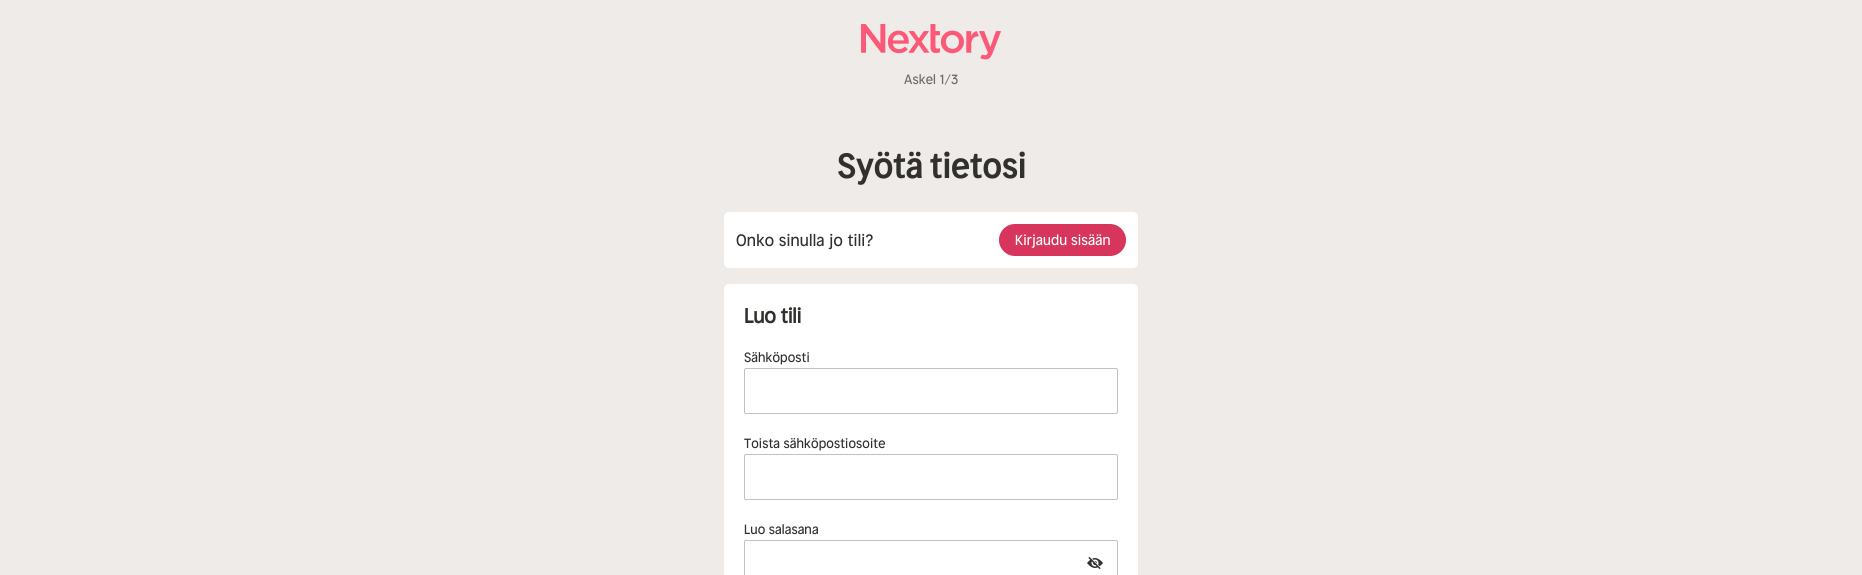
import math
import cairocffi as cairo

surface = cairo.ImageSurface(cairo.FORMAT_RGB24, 1862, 575)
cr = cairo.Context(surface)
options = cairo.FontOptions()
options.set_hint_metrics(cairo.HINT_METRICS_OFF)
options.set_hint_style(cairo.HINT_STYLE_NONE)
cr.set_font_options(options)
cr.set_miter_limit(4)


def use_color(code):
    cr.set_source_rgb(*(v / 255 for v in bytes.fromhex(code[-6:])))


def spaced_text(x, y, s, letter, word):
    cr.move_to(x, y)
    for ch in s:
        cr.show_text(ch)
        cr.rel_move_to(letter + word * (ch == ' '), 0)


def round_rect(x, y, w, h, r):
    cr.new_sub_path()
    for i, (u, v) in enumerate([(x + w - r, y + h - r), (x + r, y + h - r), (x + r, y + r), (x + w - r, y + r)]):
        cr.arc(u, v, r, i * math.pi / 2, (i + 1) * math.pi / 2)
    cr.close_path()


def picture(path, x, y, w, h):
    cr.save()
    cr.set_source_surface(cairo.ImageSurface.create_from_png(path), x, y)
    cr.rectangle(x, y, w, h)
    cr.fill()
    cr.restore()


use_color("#eeebe8")
cr.paint()
picture("img1.png", 861, 24, 140, 36)
cr.select_font_face("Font")
cr.set_font_size(13)
use_color("#6e6868")
spaced_text(904, 84, "Askel 1/3", 0.1, 0)
cr.select_font_face("Font SemiBold")
cr.set_font_size(34)
use_color("#32302d")
spaced_text(837, 178, "Syötä tietosi", -0.3, 0)
use_color("#ffffff")
round_rect(724, 212, 414, 56, 5)
cr.fill()
cr.select_font_face("Font")
cr.set_font_size(16)
use_color("#32302d")
spaced_text(736, 246, "Onko sinulla jo tili?", 0.2, 0)
use_color("#d7355b")
round_rect(999, 224, 127, 32, 16)
cr.fill()
cr.set_font_size(14)
use_color("#ffffff")
spaced_text(1015, 245, "Kirjaudu sisään", 0.1, 0)
round_rect(724, 284, 414, 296, 5)
cr.fill()
cr.select_font_face("Font", cairo.FONT_SLANT_NORMAL, cairo.FONT_WEIGHT_BOLD)
cr.set_font_size(20)
use_color("#32302d")
spaced_text(744, 323, "Luo tili", -0.25, 0)
cr.select_font_face("Font")
cr.set_font_size(13)
spaced_text(744, 362, "Sähköposti", 0.1, 0)
round_rect(744.5, 368.5, 373, 45, 1.5)
use_color("#c4c0bd")
cr.set_line_width(1)
cr.stroke()
use_color("#32302d")
spaced_text(744, 448, "Toista sähköpostiosoite", 0.1, 0)
round_rect(744.5, 454.5, 373, 45, 1.5)
use_color("#c4c0bd")
cr.stroke()
use_color("#32302d")
spaced_text(744, 534, "Luo salasana", 0.1, 0)
round_rect(744.5, 540.5, 373, 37, 1.5)
use_color("#c4c0bd")
cr.stroke()
picture("img2.png", 1087, 557, 16, 12)
surface.write_to_png("result.png")
